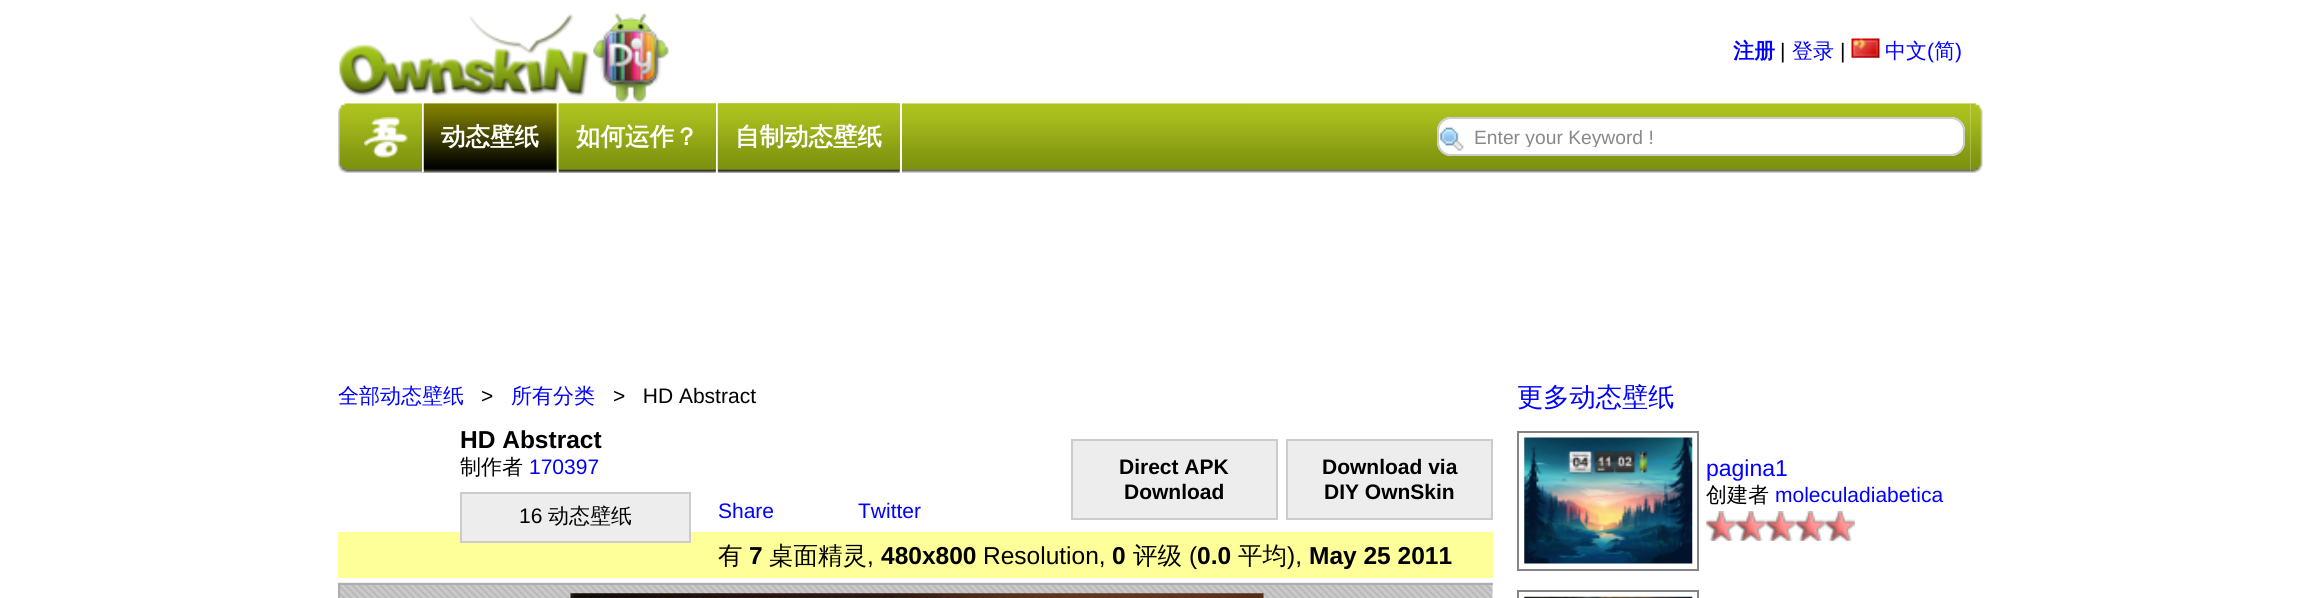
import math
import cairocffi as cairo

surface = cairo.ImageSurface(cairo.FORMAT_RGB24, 2319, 598)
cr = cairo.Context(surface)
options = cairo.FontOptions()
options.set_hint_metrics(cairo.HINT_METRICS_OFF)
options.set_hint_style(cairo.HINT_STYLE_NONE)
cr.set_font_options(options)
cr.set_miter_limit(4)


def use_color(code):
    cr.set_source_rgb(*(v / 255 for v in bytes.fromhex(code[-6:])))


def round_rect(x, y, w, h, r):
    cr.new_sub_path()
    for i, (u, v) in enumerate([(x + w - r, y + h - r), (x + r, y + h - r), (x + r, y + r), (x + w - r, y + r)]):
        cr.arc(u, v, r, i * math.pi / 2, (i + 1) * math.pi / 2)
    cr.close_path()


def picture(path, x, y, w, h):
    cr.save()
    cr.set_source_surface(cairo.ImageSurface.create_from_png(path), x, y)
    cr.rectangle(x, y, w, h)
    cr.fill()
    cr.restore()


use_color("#ffffff")
cr.paint()
picture("img1.png", 339, 13, 330, 89)
cr.select_font_face("WenQuanYi Zen Hei", cairo.FONT_SLANT_NORMAL, cairo.FONT_WEIGHT_BOLD)
cr.set_font_size(21)
use_color("#0000ff")
cr.move_to(1733, 58)
cr.show_text("注册")
cr.select_font_face("Liberation Sans")
use_color("#000000")
cr.move_to(1780, 58)
cr.show_text("|")
cr.select_font_face("WenQuanYi Zen Hei Medium")
use_color("#0000ff")
cr.move_to(1792, 58)
cr.show_text("登录")
cr.select_font_face("Liberation Sans")
use_color("#000000")
cr.move_to(1840, 58)
cr.show_text("|")
picture("img2.png", 1851, 38, 29, 20)
cr.select_font_face("WenQuanYi Zen Hei Medium")
use_color("#0000ff")
cr.move_to(1885, 58)
cr.show_text("中文")
cr.select_font_face("Liberation Sans")
cr.move_to(1927, 58)
cr.show_text("(")
cr.select_font_face("WenQuanYi Zen Hei Medium")
cr.move_to(1934, 58)
cr.show_text("简")
cr.select_font_face("Liberation Sans")
cr.move_to(1955, 58)
cr.show_text(")")
picture("img3.png", 338, 103, 12, 70)
picture("img4.png", 350, 103, 1621, 70)
use_color("#ffffff")
cr.rectangle(422, 103, 2, 69)
cr.fill()
picture("img5.png", 364, 117, 44, 41)
cr.rectangle(557, 103, 2, 70)
cr.fill()
picture("img6.png", 423, 103, 134, 70)
cr.select_font_face("WenQuanYi Zen Hei", cairo.FONT_SLANT_NORMAL, cairo.FONT_WEIGHT_BOLD)
cr.set_font_size(24.5)
cr.move_to(441, 145)
cr.show_text("动态壁纸")
cr.rectangle(716, 103, 2, 70)
cr.fill()
picture("img7.png", 558, 103, 158, 70)
cr.move_to(576, 145)
cr.show_text("如何运作？")
cr.rectangle(900, 103, 2, 70)
cr.fill()
picture("img8.png", 717, 103, 183, 70)
cr.move_to(735, 145)
cr.show_text("自制动态壁纸")
round_rect(1437, 117, 528, 39, 14)
cr.fill()
picture("img9.png", 1439, 127, 25, 24)
round_rect(1438, 118, 526, 37, 13)
use_color("#cccccc")
cr.stroke()
cr.save()
cr.rectangle(1474, 126, 490, 21)
cr.clip()
cr.select_font_face("Liberation Sans")
cr.set_font_size(19.25)
use_color("#888888")
cr.move_to(1474, 144)
cr.show_text("Enter your Keyword !")
cr.restore()
picture("img10.png", 1970, 103, 13, 70)
cr.select_font_face("WenQuanYi Zen Hei Medium")
cr.set_font_size(21)
use_color("#0000ff")
cr.move_to(338, 403)
cr.show_text("全部动态壁纸")
cr.select_font_face("Liberation Sans")
use_color("#000000")
cr.move_to(481, 403)
cr.show_text(">")
cr.select_font_face("WenQuanYi Zen Hei Medium")
use_color("#0000ff")
cr.move_to(511, 403)
cr.show_text("所有分类")
cr.select_font_face("Liberation Sans")
use_color("#000000")
cr.move_to(613, 403)
cr.show_text(">   HD Abstract")
cr.select_font_face("Liberation Sans", cairo.FONT_SLANT_NORMAL, cairo.FONT_WEIGHT_BOLD)
cr.set_font_size(24.5)
cr.move_to(460, 448)
cr.show_text("HD Abstract")
cr.select_font_face("WenQuanYi Zen Hei Medium")
cr.set_font_size(21)
cr.move_to(460, 474)
cr.show_text("制作者")
cr.select_font_face("Liberation Sans")
use_color("#0000ff")
cr.move_to(529, 474)
cr.show_text("170397")
use_color("#ffff99")
cr.rectangle(338, 532, 1155, 46)
cr.fill()
use_color("#ededed")
cr.rectangle(461, 493, 229, 49)
cr.fill_preserve()
use_color("#cccccc")
cr.stroke()
use_color("#000000")
cr.move_to(519, 523)
cr.show_text("16")
cr.select_font_face("WenQuanYi Zen Hei Medium")
cr.move_to(548, 523)
cr.show_text("动态壁纸")
use_color("#ededed")
cr.rectangle(1072, 440, 205, 79)
cr.fill_preserve()
use_color("#cccccc")
cr.stroke()
cr.select_font_face("Liberation Sans", cairo.FONT_SLANT_NORMAL, cairo.FONT_WEIGHT_BOLD)
use_color("#000000")
cr.move_to(1119, 474)
cr.show_text("Direct APK")
cr.move_to(1124, 499)
cr.show_text("Download")
use_color("#ededed")
cr.rectangle(1287, 440, 205, 79)
cr.fill_preserve()
use_color("#cccccc")
cr.stroke()
use_color("#000000")
cr.move_to(1322, 474)
cr.show_text("Download via")
cr.move_to(1324, 499)
cr.show_text("DIY OwnSkin")
cr.select_font_face("Liberation Sans")
use_color("#0000ff")
cr.move_to(718, 518)
cr.show_text("Share")
cr.move_to(858, 518)
cr.show_text("Twitter")
cr.select_font_face("WenQuanYi Zen Hei Medium")
cr.set_font_size(24.5)
use_color("#000000")
cr.move_to(718, 564)
cr.show_text("有")
cr.select_font_face("Liberation Sans", cairo.FONT_SLANT_NORMAL, cairo.FONT_WEIGHT_BOLD)
cr.move_to(749, 564)
cr.show_text("7")
cr.select_font_face("WenQuanYi Zen Hei Medium")
cr.move_to(769, 564)
cr.show_text("桌面精灵")
cr.select_font_face("Liberation Sans")
cr.move_to(867, 564)
cr.show_text(",")
cr.select_font_face("Liberation Sans", cairo.FONT_SLANT_NORMAL, cairo.FONT_WEIGHT_BOLD)
cr.move_to(881, 564)
cr.show_text("480x800")
cr.select_font_face("Liberation Sans")
cr.move_to(983, 564)
cr.show_text("Resolution,")
cr.select_font_face("Liberation Sans", cairo.FONT_SLANT_NORMAL, cairo.FONT_WEIGHT_BOLD)
cr.move_to(1112, 564)
cr.show_text("0")
cr.select_font_face("WenQuanYi Zen Hei Medium")
cr.move_to(1133, 564)
cr.show_text("评级")
cr.select_font_face("Liberation Sans")
cr.move_to(1189, 564)
cr.show_text("(")
cr.select_font_face("Liberation Sans", cairo.FONT_SLANT_NORMAL, cairo.FONT_WEIGHT_BOLD)
cr.move_to(1197, 564)
cr.show_text("0.0")
cr.select_font_face("WenQuanYi Zen Hei Medium")
cr.move_to(1238, 564)
cr.show_text("平均")
cr.select_font_face("Liberation Sans")
cr.move_to(1287, 564)
cr.show_text("),")
cr.select_font_face("Liberation Sans", cairo.FONT_SLANT_NORMAL, cairo.FONT_WEIGHT_BOLD)
cr.move_to(1309, 564)
cr.show_text("May 25 2011")
picture("img11.png", 337, 582, 1156, 16)
cr.save()
cr.rectangle(338, 425, 1155, 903)
cr.clip()
cr.rectangle(339, 584, 1156, 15)
use_color("#adadad")
cr.stroke()
cr.restore()
picture("img12.png", 570, 593, 694, 5)
cr.select_font_face("WenQuanYi Zen Hei Medium")
cr.set_font_size(26.25)
use_color("#0000ff")
cr.move_to(1517, 406)
cr.show_text("更多动态壁纸")
cr.rectangle(1518, 432, 180, 138)
use_color("#858585")
cr.stroke()
picture("img13.png", 1524, 437, 169, 127)
cr.select_font_face("Liberation Sans")
cr.set_font_size(23)
use_color("#0000ff")
cr.move_to(1706, 476)
cr.show_text("pagina1")
cr.select_font_face("WenQuanYi Zen Hei Medium")
cr.set_font_size(21)
use_color("#000000")
cr.move_to(1706, 502)
cr.show_text("创建者")
cr.select_font_face("Liberation Sans")
use_color("#0000ff")
cr.move_to(1775, 502)
cr.show_text("moleculadiabetica")
picture("img14.png", 1706, 511, 30, 30)
picture("img15.png", 1736, 511, 30, 30)
picture("img16.png", 1765, 511, 31, 30)
picture("img17.png", 1795, 511, 31, 30)
picture("img18.png", 1825, 511, 30, 30)
cr.rectangle(1518, 591, 180, 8)
use_color("#858585")
cr.stroke()
picture("img19.png", 1524, 596, 169, 2)
surface.write_to_png("result.png")
